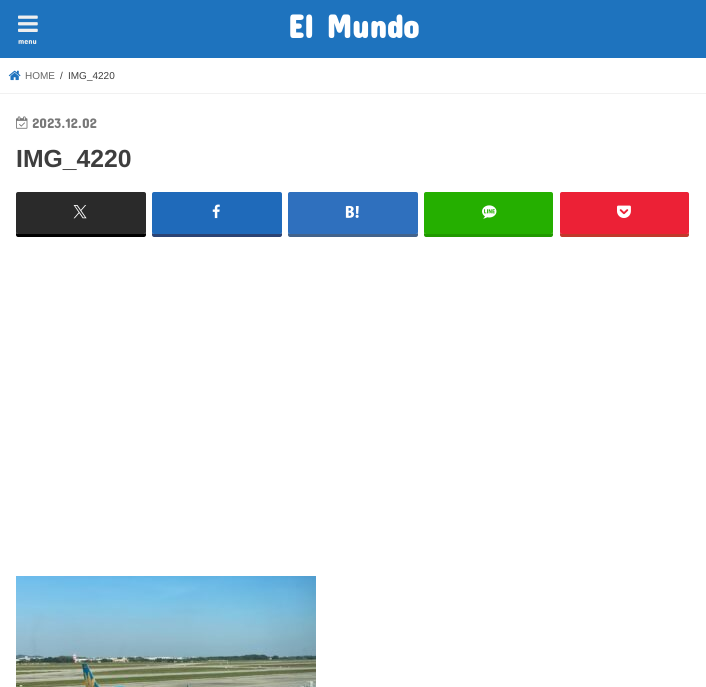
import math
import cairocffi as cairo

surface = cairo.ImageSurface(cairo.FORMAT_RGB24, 706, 687)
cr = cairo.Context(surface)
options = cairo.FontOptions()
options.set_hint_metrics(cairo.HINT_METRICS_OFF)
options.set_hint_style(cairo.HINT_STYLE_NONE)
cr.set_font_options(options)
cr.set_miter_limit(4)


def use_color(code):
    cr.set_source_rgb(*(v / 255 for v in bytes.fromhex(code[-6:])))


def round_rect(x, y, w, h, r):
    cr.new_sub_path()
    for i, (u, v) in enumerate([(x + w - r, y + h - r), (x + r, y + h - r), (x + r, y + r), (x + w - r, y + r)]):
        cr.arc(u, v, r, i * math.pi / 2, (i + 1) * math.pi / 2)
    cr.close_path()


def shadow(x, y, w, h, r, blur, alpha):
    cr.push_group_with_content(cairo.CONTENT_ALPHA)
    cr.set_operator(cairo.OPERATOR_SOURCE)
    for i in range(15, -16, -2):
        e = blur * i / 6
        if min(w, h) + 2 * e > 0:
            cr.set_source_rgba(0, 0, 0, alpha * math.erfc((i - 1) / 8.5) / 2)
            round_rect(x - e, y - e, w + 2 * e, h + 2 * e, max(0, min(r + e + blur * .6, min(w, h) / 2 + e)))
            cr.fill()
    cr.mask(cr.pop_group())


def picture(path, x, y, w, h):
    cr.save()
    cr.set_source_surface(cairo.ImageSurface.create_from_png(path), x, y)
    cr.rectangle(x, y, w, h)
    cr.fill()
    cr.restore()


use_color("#ffffff")
cr.paint()
use_color("#1e73be")
cr.rectangle(0, 0, 706, 58)
cr.fill()
cr.select_font_face("Concert One", cairo.FONT_SLANT_NORMAL, cairo.FONT_WEIGHT_BOLD)
cr.set_font_size(33)
use_color("#ffffff")
cr.move_to(288, 38)
cr.show_text("El Mundo")
picture("img1.png", 18, 15, 20, 17)
cr.select_font_face("Concert One")
cr.set_font_size(8)
use_color("#eeeeee")
cr.move_to(18, 44)
cr.show_text("menu")
use_color("#f7f7f7")
cr.rectangle(0, 93, 706, 1)
cr.fill()
picture("img2.png", 8, 70, 13, 11)
cr.select_font_face("Liberation Sans")
cr.set_font_size(10)
use_color("#666666")
cr.move_to(25, 79)
cr.show_text("HOME")
use_color("#3e3e3e")
cr.move_to(60, 79)
cr.show_text("/")
cr.move_to(68, 79)
cr.show_text("IMG_4220")
use_color("#dddddd")
shadow(0, 94, 706, 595, 0, 0.5, 1)
use_color("#ffffff")
cr.rectangle(0, 94, 706, 593)
cr.fill()
picture("img3.png", 16, 116, 12, 13)
cr.select_font_face("Concert One")
cr.set_font_size(14)
use_color("#787878")
cr.move_to(32, 128)
cr.show_text("2023.12.02")
cr.select_font_face("Liberation Sans", cairo.FONT_SLANT_NORMAL, cairo.FONT_WEIGHT_BOLD)
cr.set_font_size(24.75)
use_color("#3e3e3e")
cr.move_to(16, 167)
cr.show_text("IMG_4220")
use_color("#000000")
cr.new_path()
cr.move_to(16, 232)
cr.line_to(16, 235)
cr.curve_to(16, 236, 17, 237, 18, 237)
cr.line_to(144, 237)
cr.curve_to(145, 237, 146, 236, 146, 235)
cr.line_to(146, 232)
cr.curve_to(146, 233, 145, 234, 144, 234)
cr.line_to(18, 234)
cr.curve_to(17, 234, 16, 233, 16, 232)
cr.close_path()
cr.fill()
use_color("#2a2a2a")
round_rect(16, 192, 130, 42, 2)
cr.fill()
picture("img4.png", 73, 205, 14, 14)
use_color("#2c4373")
cr.new_path()
cr.move_to(152, 232)
cr.line_to(152, 235)
cr.curve_to(152, 236, 153, 237, 154, 237)
cr.line_to(280, 237)
cr.curve_to(281, 237, 282, 236, 282, 235)
cr.line_to(282, 232)
cr.curve_to(282, 233, 281, 234, 280, 234)
cr.line_to(154, 234)
cr.curve_to(153, 234, 152, 233, 152, 232)
cr.close_path()
cr.fill()
use_color("#1f6aba")
round_rect(152, 192, 130, 42, 2)
cr.fill()
picture("img5.png", 212, 204, 8, 15)
use_color("#43638b")
cr.new_path()
cr.move_to(288, 232)
cr.line_to(288, 235)
cr.curve_to(288, 236, 289, 237, 290, 237)
cr.line_to(416, 237)
cr.curve_to(417, 237, 418, 236, 418, 235)
cr.line_to(418, 232)
cr.curve_to(418, 233, 417, 234, 416, 234)
cr.line_to(290, 234)
cr.curve_to(289, 234, 288, 233, 288, 232)
cr.close_path()
cr.fill()
use_color("#2f70be")
round_rect(288, 192, 130, 42, 2)
cr.fill()
picture("img6.png", 345, 205, 14, 13)
use_color("#219900")
cr.new_path()
cr.move_to(424, 232)
cr.line_to(424, 235)
cr.curve_to(424, 236, 425, 237, 426, 237)
cr.line_to(551, 237)
cr.curve_to(552, 237, 553, 236, 553, 235)
cr.line_to(553, 232)
cr.curve_to(553, 233, 552, 234, 551, 234)
cr.line_to(426, 234)
cr.curve_to(425, 234, 424, 233, 424, 232)
cr.close_path()
cr.fill()
use_color("#25af00")
round_rect(424, 192, 129, 42, 2)
cr.fill()
picture("img7.png", 482, 205, 15, 14)
use_color("#c0392b")
cr.new_path()
cr.move_to(560, 232)
cr.line_to(560, 235)
cr.curve_to(560, 236, 561, 237, 562, 237)
cr.line_to(687, 237)
cr.curve_to(688, 237, 689, 236, 689, 235)
cr.line_to(689, 232)
cr.curve_to(689, 233, 688, 234, 687, 234)
cr.line_to(562, 234)
cr.curve_to(561, 234, 560, 233, 560, 232)
cr.close_path()
cr.fill()
use_color("#ec2136")
round_rect(560, 192, 129, 42, 2)
cr.fill()
picture("img8.png", 617, 205, 14, 13)
picture("img9.png", 16, 576, 300, 111)
surface.write_to_png("result.png")
